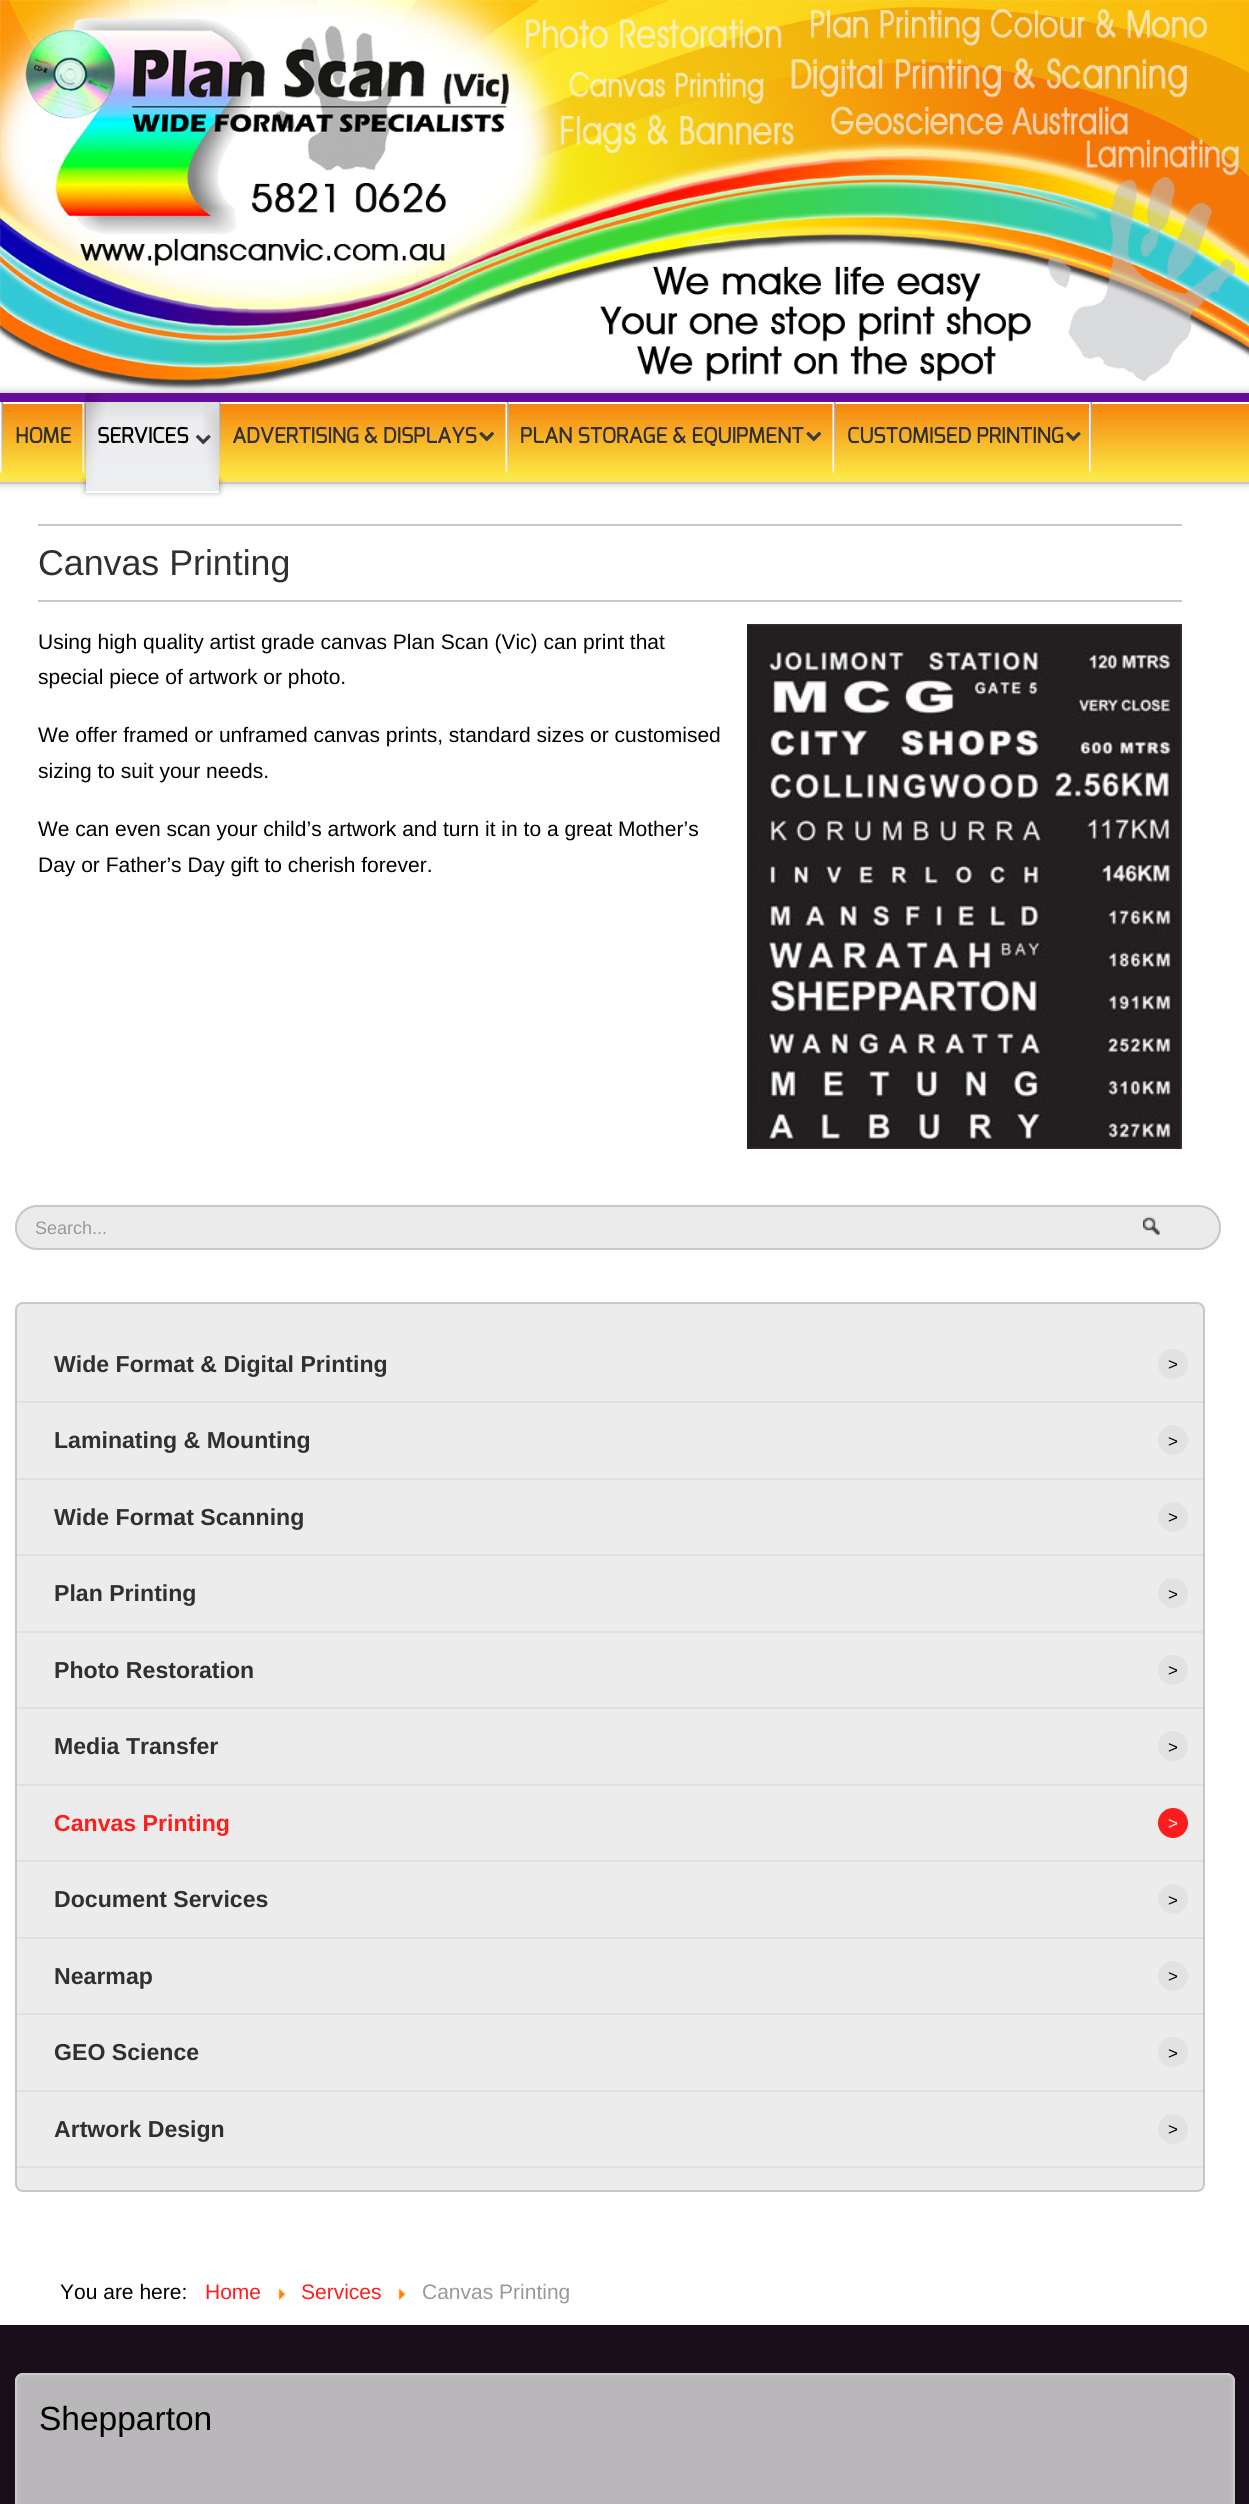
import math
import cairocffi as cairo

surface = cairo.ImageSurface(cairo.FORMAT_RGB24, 1249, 2504)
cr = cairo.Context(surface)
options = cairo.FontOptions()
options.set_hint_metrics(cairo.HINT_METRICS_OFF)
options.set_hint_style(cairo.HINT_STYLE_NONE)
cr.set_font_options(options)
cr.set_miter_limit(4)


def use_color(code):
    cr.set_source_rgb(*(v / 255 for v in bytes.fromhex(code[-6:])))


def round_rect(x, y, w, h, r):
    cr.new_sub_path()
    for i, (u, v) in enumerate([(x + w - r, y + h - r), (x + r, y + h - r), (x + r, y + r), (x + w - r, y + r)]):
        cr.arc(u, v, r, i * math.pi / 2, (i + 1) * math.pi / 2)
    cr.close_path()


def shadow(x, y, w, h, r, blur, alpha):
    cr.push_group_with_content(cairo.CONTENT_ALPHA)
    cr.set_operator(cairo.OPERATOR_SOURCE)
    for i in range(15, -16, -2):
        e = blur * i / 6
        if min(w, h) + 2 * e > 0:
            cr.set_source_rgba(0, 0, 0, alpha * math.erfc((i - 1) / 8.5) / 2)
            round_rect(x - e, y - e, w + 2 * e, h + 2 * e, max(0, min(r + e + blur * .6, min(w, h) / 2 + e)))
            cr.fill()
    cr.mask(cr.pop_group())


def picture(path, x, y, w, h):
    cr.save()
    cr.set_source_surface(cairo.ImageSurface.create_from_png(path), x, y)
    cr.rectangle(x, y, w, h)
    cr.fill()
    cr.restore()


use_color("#ffffff")
cr.paint()
picture("img1.png", 0, 0, 1249, 393)
use_color("#000000")
shadow(0, 393, 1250, 90, 0, 4.5, 0.3)
gradient = cairo.LinearGradient(625, 393, 625, 482)
gradient.add_color_stop_rgba(0, 0.957, 0.463, 0.027, 1)
gradient.add_color_stop_rgba(0.95, 0.988, 0.914, 0.267, 1)
gradient.add_color_stop_rgba(1, 0.992, 0.863, 0.443, 1)
cr.set_source(gradient)
cr.rectangle(0, 404, 1249, 78)
cr.fill()
use_color("#ffffff")
cr.rectangle(3, 402, 1246, 2)
cr.fill()
use_color("#650c99")
cr.rectangle(0, 393, 1249, 9)
cr.fill()
use_color("#c7c7c7")
cr.rectangle(0, 482, 1249, 2)
cr.fill()
picture("img2.png", 0, 402, 3, 71)
cr.select_font_face("Exo", cairo.FONT_SLANT_NORMAL, cairo.FONT_WEIGHT_BOLD)
cr.set_font_size(21)
use_color("#303030")
cr.move_to(15, 443)
cr.show_text("HOME")
picture("img3.png", 82, 402, 4, 71)
use_color("#000000")
shadow(86, 480, 133, 12, 0, 3, 0.4)
gradient = cairo.LinearGradient(152, 393, 152, 491)
gradient.add_color_stop_rgba(0, 0.847, 0.847, 0.855, 1)
gradient.add_color_stop_rgba(0.3, 0.929, 0.929, 0.937, 1)
gradient.add_color_stop_rgba(1, 0.929, 0.933, 0.941, 1)
cr.set_source(gradient)
cr.rectangle(86, 402, 133, 89)
cr.fill()
use_color("#ffffff")
cr.rectangle(86, 491, 133, 2)
cr.fill()
use_color("#000000")
cr.move_to(97, 443)
cr.show_text("SERVICES")
picture("img4.png", 85, 393, 20, 93)
picture("img5.png", 203, 404, 16, 86)
picture("img6.png", 195, 434, 16, 11)
picture("img7.png", 219, 402, 2, 71)
use_color("#303030")
cr.move_to(232, 443)
cr.show_text("ADVERTISING & DISPLAYS")
picture("img8.png", 479, 431, 16, 11)
picture("img3.png", 505, 402, 4, 71)
cr.move_to(520, 443)
cr.show_text("PLAN STORAGE & EQUIPMENT")
picture("img8.png", 806, 431, 16, 11)
picture("img3.png", 832, 402, 4, 71)
cr.move_to(847, 443)
cr.show_text("CUSTOMISED PRINTING")
picture("img9.png", 1065, 431, 16, 11)
picture("img10.png", 1089, 402, 3, 71)
use_color("#c7c7c7")
cr.rectangle(38, 524, 1144, 2)
cr.fill()
cr.rectangle(38, 600, 1144, 2)
cr.fill()
cr.select_font_face("Liberation Sans")
cr.set_font_size(35.75)
use_color("#303030")
cr.move_to(38, 575)
cr.show_text("Canvas Printing")
cr.set_font_size(21)
use_color("#000000")
cr.move_to(38, 649)
cr.show_text("Using high quality artist grade canvas Plan Scan (Vic) can print that")
cr.move_to(38, 684)
cr.show_text("special piece of artwork or photo.")
picture("img11.png", 747, 624, 435, 525)
cr.move_to(38, 742)
cr.show_text("We offer framed or unframed canvas prints, standard sizes or customised")
cr.move_to(38, 778)
cr.show_text("sizing to suit your needs.")
cr.move_to(38, 836)
cr.show_text("We can even scan your child’s artwork and turn it in to a great Mother’s")
cr.move_to(38, 872)
cr.show_text("Day or Father’s Day gift to cherish forever.")
use_color("#ebebeb")
round_rect(15, 1205, 1206, 45, 22.5)
cr.fill()
picture("img12.png", 1143, 1216, 17, 20)
round_rect(16, 1206, 1204, 43, 21.5)
use_color("#c7c7c7")
cr.stroke()
cr.set_font_size(18)
use_color("#999999")
cr.move_to(35, 1234)
cr.show_text("Search...")
use_color("#ececec")
round_rect(16, 1303, 1188, 888, 7)
cr.fill_preserve()
use_color("#c7c7c7")
cr.stroke()
use_color("#e0e0e0")
cr.rectangle(17, 1401, 1186, 2)
cr.fill()
cr.select_font_face("Liberation Sans", cairo.FONT_SLANT_NORMAL, cairo.FONT_WEIGHT_BOLD)
cr.set_font_size(23.1)
use_color("#303030")
cr.move_to(54, 1372)
cr.show_text("Wide Format & Digital Printing")
use_color("#e2e2e2")
cr.new_path()
cr.arc(1173, 1364, 15, 0, 2 * math.pi)
cr.fill()
cr.select_font_face("Liberation Sans")
cr.set_font_size(17)
use_color("#000000")
cr.move_to(1168, 1370)
cr.show_text(">")
use_color("#e0e0e0")
cr.rectangle(17, 1478, 1186, 2)
cr.fill()
cr.select_font_face("Liberation Sans", cairo.FONT_SLANT_NORMAL, cairo.FONT_WEIGHT_BOLD)
cr.set_font_size(23.1)
use_color("#303030")
cr.move_to(54, 1448)
cr.show_text("Laminating & Mounting")
use_color("#e2e2e2")
cr.new_path()
cr.arc(1173, 1440, 15, 0, 2 * math.pi)
cr.fill()
cr.select_font_face("Liberation Sans")
cr.set_font_size(17)
use_color("#000000")
cr.move_to(1168, 1447)
cr.show_text(">")
use_color("#e0e0e0")
cr.rectangle(17, 1554, 1186, 2)
cr.fill()
cr.select_font_face("Liberation Sans", cairo.FONT_SLANT_NORMAL, cairo.FONT_WEIGHT_BOLD)
cr.set_font_size(23.1)
use_color("#303030")
cr.move_to(54, 1525)
cr.show_text("Wide Format Scanning")
use_color("#e2e2e2")
cr.new_path()
cr.arc(1173, 1517, 15, 0, 2 * math.pi)
cr.fill()
cr.select_font_face("Liberation Sans")
cr.set_font_size(17)
use_color("#000000")
cr.move_to(1168, 1523)
cr.show_text(">")
use_color("#e0e0e0")
cr.rectangle(17, 1631, 1186, 2)
cr.fill()
cr.select_font_face("Liberation Sans", cairo.FONT_SLANT_NORMAL, cairo.FONT_WEIGHT_BOLD)
cr.set_font_size(23.1)
use_color("#303030")
cr.move_to(54, 1601)
cr.show_text("Plan Printing")
use_color("#e2e2e2")
cr.new_path()
cr.arc(1173, 1593, 15, 0, 2 * math.pi)
cr.fill()
cr.select_font_face("Liberation Sans")
cr.set_font_size(17)
use_color("#000000")
cr.move_to(1168, 1600)
cr.show_text(">")
use_color("#e0e0e0")
cr.rectangle(17, 1707, 1186, 2)
cr.fill()
cr.select_font_face("Liberation Sans", cairo.FONT_SLANT_NORMAL, cairo.FONT_WEIGHT_BOLD)
cr.set_font_size(23.1)
use_color("#303030")
cr.move_to(54, 1678)
cr.show_text("Photo Restoration")
use_color("#e2e2e2")
cr.new_path()
cr.arc(1173, 1670, 15, 0, 2 * math.pi)
cr.fill()
cr.select_font_face("Liberation Sans")
cr.set_font_size(17)
use_color("#000000")
cr.move_to(1168, 1676)
cr.show_text(">")
use_color("#e0e0e0")
cr.rectangle(17, 1784, 1186, 2)
cr.fill()
cr.select_font_face("Liberation Sans", cairo.FONT_SLANT_NORMAL, cairo.FONT_WEIGHT_BOLD)
cr.set_font_size(23.1)
use_color("#303030")
cr.move_to(54, 1754)
cr.show_text("Media Transfer")
use_color("#e2e2e2")
cr.new_path()
cr.arc(1173, 1746, 15, 0, 2 * math.pi)
cr.fill()
cr.select_font_face("Liberation Sans")
cr.set_font_size(17)
use_color("#000000")
cr.move_to(1168, 1753)
cr.show_text(">")
use_color("#e0e0e0")
cr.rectangle(17, 1860, 1186, 2)
cr.fill()
cr.select_font_face("Liberation Sans", cairo.FONT_SLANT_NORMAL, cairo.FONT_WEIGHT_BOLD)
cr.set_font_size(23.1)
use_color("#ff1c1c")
cr.move_to(54, 1831)
cr.show_text("Canvas Printing")
cr.new_path()
cr.arc(1173, 1823, 15, 0, 2 * math.pi)
cr.fill()
cr.select_font_face("Liberation Sans")
cr.set_font_size(17)
use_color("#ffffff")
cr.move_to(1168, 1829)
cr.show_text(">")
use_color("#e0e0e0")
cr.rectangle(17, 1937, 1186, 2)
cr.fill()
cr.select_font_face("Liberation Sans", cairo.FONT_SLANT_NORMAL, cairo.FONT_WEIGHT_BOLD)
cr.set_font_size(23.1)
use_color("#303030")
cr.move_to(54, 1907)
cr.show_text("Document Services")
use_color("#e2e2e2")
cr.new_path()
cr.arc(1173, 1899, 15, 0, 2 * math.pi)
cr.fill()
cr.select_font_face("Liberation Sans")
cr.set_font_size(17)
use_color("#000000")
cr.move_to(1168, 1906)
cr.show_text(">")
use_color("#e0e0e0")
cr.rectangle(17, 2013, 1186, 2)
cr.fill()
cr.select_font_face("Liberation Sans", cairo.FONT_SLANT_NORMAL, cairo.FONT_WEIGHT_BOLD)
cr.set_font_size(23.1)
use_color("#303030")
cr.move_to(54, 1984)
cr.show_text("Nearmap")
use_color("#e2e2e2")
cr.new_path()
cr.arc(1173, 1976, 15, 0, 2 * math.pi)
cr.fill()
cr.select_font_face("Liberation Sans")
cr.set_font_size(17)
use_color("#000000")
cr.move_to(1168, 1982)
cr.show_text(">")
use_color("#e0e0e0")
cr.rectangle(17, 2090, 1186, 2)
cr.fill()
cr.select_font_face("Liberation Sans", cairo.FONT_SLANT_NORMAL, cairo.FONT_WEIGHT_BOLD)
cr.set_font_size(23.1)
use_color("#303030")
cr.move_to(54, 2060)
cr.show_text("GEO Science")
use_color("#e2e2e2")
cr.new_path()
cr.arc(1173, 2052, 15, 0, 2 * math.pi)
cr.fill()
cr.select_font_face("Liberation Sans")
cr.set_font_size(17)
use_color("#000000")
cr.move_to(1168, 2059)
cr.show_text(">")
use_color("#e0e0e0")
cr.rectangle(17, 2166, 1186, 2)
cr.fill()
cr.select_font_face("Liberation Sans", cairo.FONT_SLANT_NORMAL, cairo.FONT_WEIGHT_BOLD)
cr.set_font_size(23.1)
use_color("#303030")
cr.move_to(54, 2137)
cr.show_text("Artwork Design")
use_color("#e2e2e2")
cr.new_path()
cr.arc(1173, 2129, 15, 0, 2 * math.pi)
cr.fill()
cr.select_font_face("Liberation Sans")
cr.set_font_size(17)
use_color("#000000")
cr.move_to(1168, 2135)
cr.show_text(">")
cr.set_font_size(21)
cr.move_to(60, 2299)
cr.show_text("You are here:")
use_color("#ff1c1c")
cr.move_to(205, 2299)
cr.show_text("Home")
picture("img13.png", 278, 2288, 8, 12)
cr.move_to(301, 2299)
cr.show_text("Services")
picture("img14.png", 398, 2288, 8, 12)
use_color("#999999")
cr.move_to(422, 2299)
cr.show_text("Canvas Printing")
use_color("#1b0e1b")
cr.rectangle(0, 2325, 1249, 179)
cr.fill()
use_color("#b9b7b9")
round_rect(15, 2373, 1220, 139, 8)
cr.fill()
round_rect(18, 2376, 1214, 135, 5)
use_color("#bdbbbd")
cr.stroke()
round_rect(16, 2374, 1218, 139, 7)
use_color("#cccccc")
cr.stroke()
cr.set_font_size(33.5)
use_color("#000000")
cr.move_to(39, 2430)
cr.show_text("Shepparton")
surface.write_to_png("result.png")
